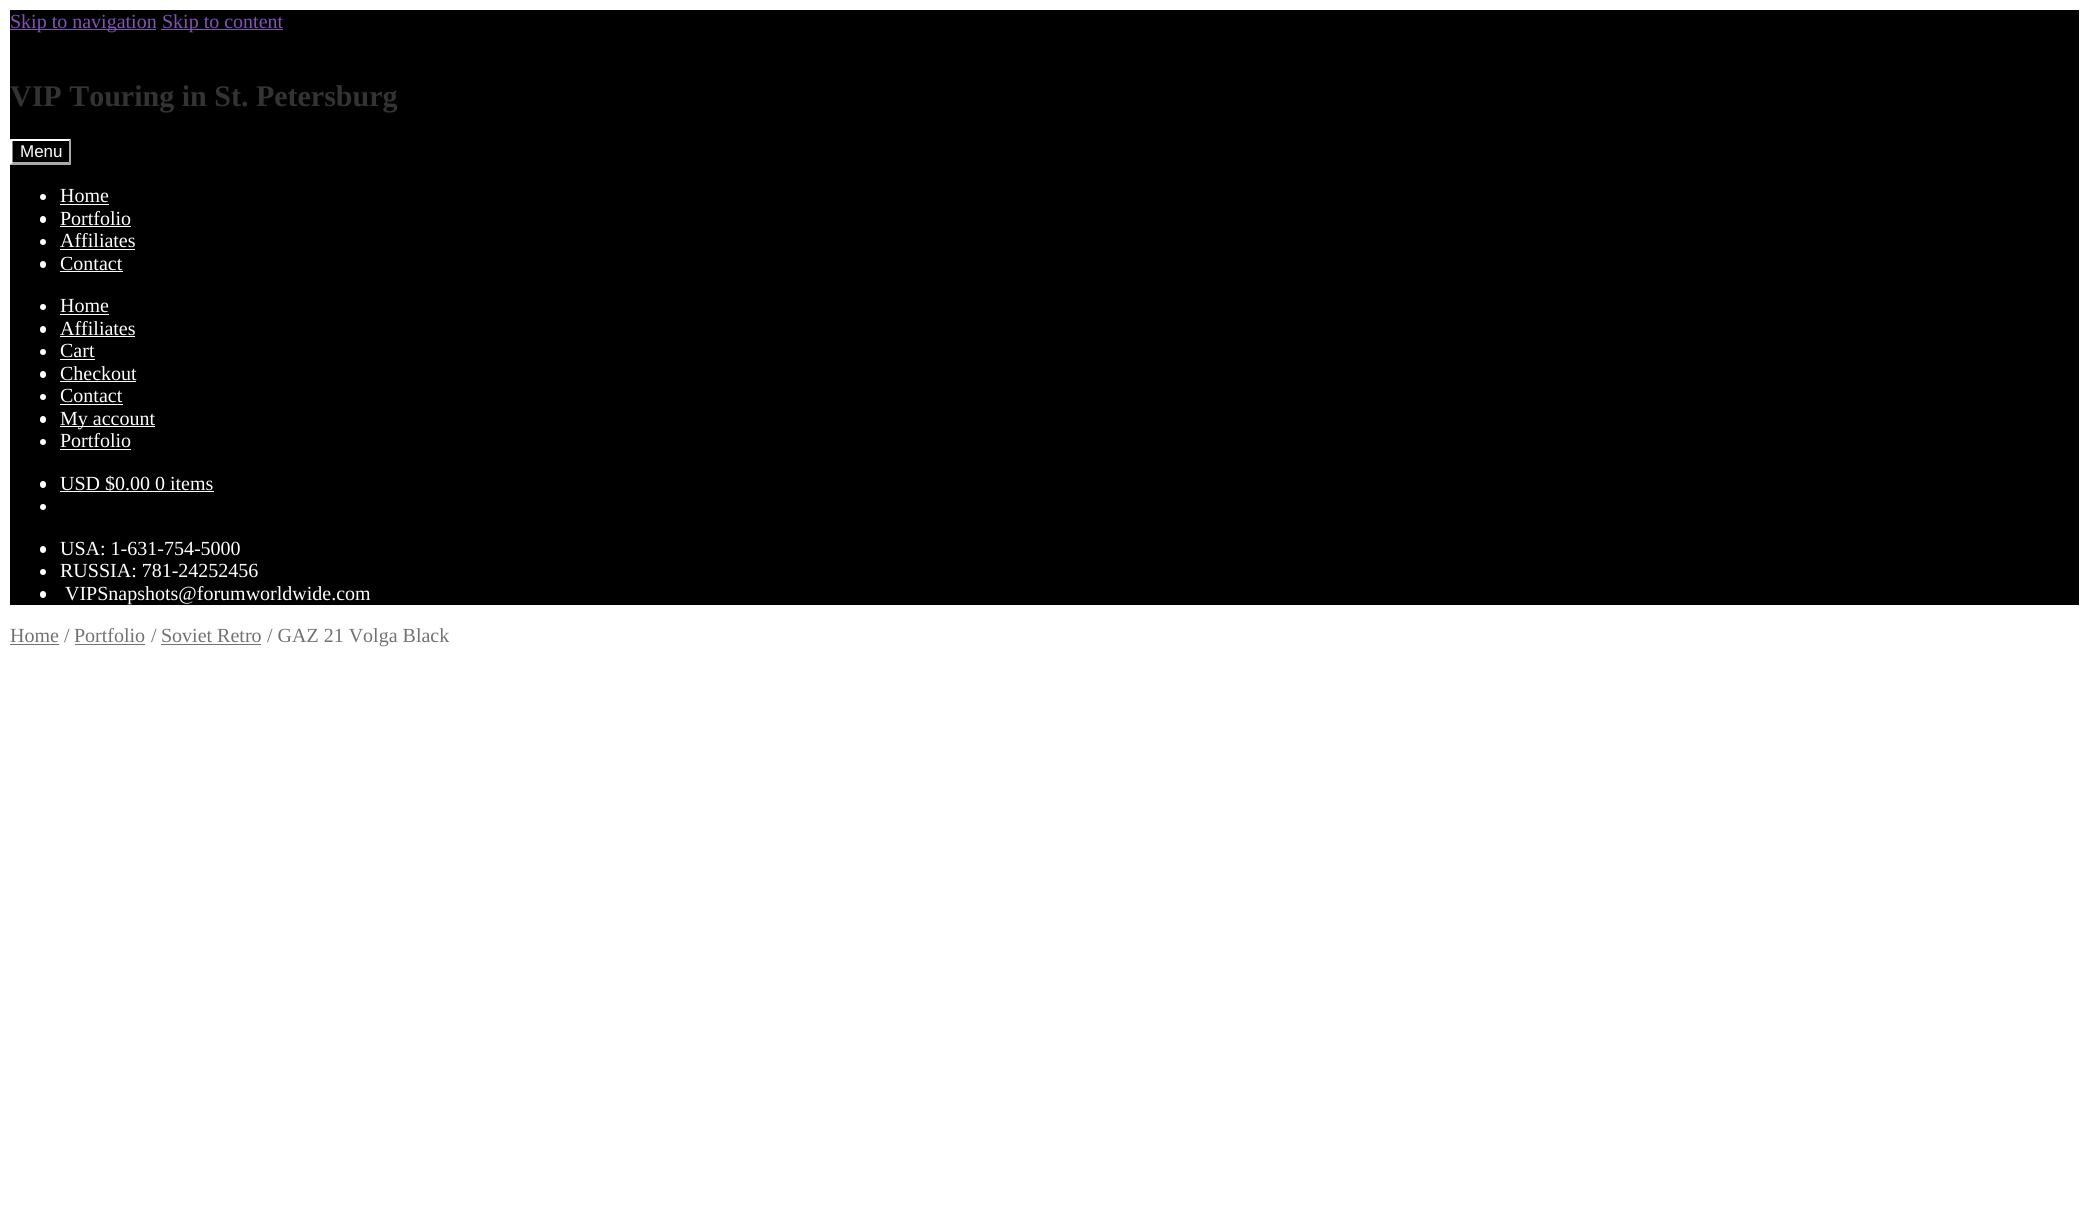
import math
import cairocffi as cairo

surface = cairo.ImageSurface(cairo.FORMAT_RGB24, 2088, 1225)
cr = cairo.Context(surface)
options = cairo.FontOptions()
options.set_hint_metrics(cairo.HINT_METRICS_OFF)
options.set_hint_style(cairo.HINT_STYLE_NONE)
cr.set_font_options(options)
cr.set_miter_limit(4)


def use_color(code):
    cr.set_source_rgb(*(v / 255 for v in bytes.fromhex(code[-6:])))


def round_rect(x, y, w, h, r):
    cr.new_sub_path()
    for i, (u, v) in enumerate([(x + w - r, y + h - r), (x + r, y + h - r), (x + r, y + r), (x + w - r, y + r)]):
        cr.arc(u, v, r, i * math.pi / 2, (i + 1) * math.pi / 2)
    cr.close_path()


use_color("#ffffff")
cr.paint()
use_color("#000000")
cr.rectangle(10, 10, 2069, 595)
cr.fill()
use_color("#7f54b3")
cr.rectangle(10, 29, 146, 1)
cr.fill()
cr.select_font_face("Liberation Serif")
cr.set_font_size(20)
cr.move_to(10, 28)
cr.show_text("Skip to navigation")
cr.rectangle(161, 29, 122, 1)
cr.fill()
cr.move_to(162, 28)
cr.show_text("Skip to content")
cr.select_font_face("Liberation Serif", cairo.FONT_SLANT_NORMAL, cairo.FONT_WEIGHT_BOLD)
cr.set_font_size(30)
use_color("#333333")
cr.move_to(10, 106)
cr.show_text("VIP Touring in St. Petersburg")
use_color("#ffffff")
cr.new_path()
cr.move_to(10, 139)
cr.line_to(71, 139)
cr.line_to(69, 141)
cr.line_to(12, 141)
cr.close_path()
cr.fill()
use_color("#aaaaaa")
cr.new_path()
cr.move_to(71, 139)
cr.line_to(71, 165)
cr.line_to(69, 162.5)
cr.line_to(69, 141)
cr.close_path()
cr.fill()
cr.new_path()
cr.move_to(71, 165)
cr.line_to(10, 165)
cr.line_to(12, 162)
cr.line_to(69, 162)
cr.close_path()
cr.fill()
use_color("#ffffff")
cr.new_path()
cr.move_to(10, 165)
cr.line_to(10, 139)
cr.line_to(12.5, 141)
cr.line_to(12.5, 162.5)
cr.close_path()
cr.fill()
cr.select_font_face("Liberation Sans")
cr.set_font_size(17)
cr.move_to(20, 157)
cr.show_text("Menu")
cr.new_path()
cr.arc(43, 197, 3, 0, 2 * math.pi)
cr.fill()
cr.select_font_face("Liberation Serif")
cr.set_font_size(20)
cr.move_to(60, 202)
cr.show_text("Home")
cr.rectangle(60, 204, 49, 1)
cr.fill()
round_rect(40, 216, 6, 7, 3)
cr.fill()
cr.move_to(60, 225)
cr.show_text("Portfolio")
cr.rectangle(60, 226, 71, 1)
cr.fill()
cr.arc(43, 242, 3, 0, 2 * math.pi)
cr.fill()
cr.move_to(60, 247)
cr.show_text("Affiliates")
cr.rectangle(60, 249, 75, 1)
cr.fill()
round_rect(40, 261, 6, 7, 3)
cr.fill()
cr.move_to(60, 270)
cr.show_text("Contact")
cr.rectangle(60, 271, 63, 1)
cr.fill()
cr.arc(43, 307, 3, 0, 2 * math.pi)
cr.fill()
cr.move_to(60, 312)
cr.show_text("Home")
cr.rectangle(60, 314, 49, 1)
cr.fill()
round_rect(40, 326, 6, 7, 3)
cr.fill()
cr.move_to(60, 335)
cr.show_text("Affiliates")
cr.rectangle(60, 336, 75, 1)
cr.fill()
cr.arc(43, 352, 3, 0, 2 * math.pi)
cr.fill()
cr.move_to(60, 357)
cr.show_text("Cart")
cr.rectangle(60, 359, 35, 1)
cr.fill()
round_rect(40, 371, 6, 7, 3)
cr.fill()
cr.move_to(60, 380)
cr.show_text("Checkout")
cr.rectangle(60, 381, 76, 1)
cr.fill()
cr.arc(43, 397, 3, 0, 2 * math.pi)
cr.fill()
cr.move_to(60, 402)
cr.show_text("Contact")
cr.rectangle(60, 404, 63, 1)
cr.fill()
round_rect(40, 416, 6, 7, 3)
cr.fill()
cr.rectangle(60, 426, 95, 1)
cr.fill()
cr.move_to(60, 425)
cr.show_text("My account")
cr.new_path()
cr.arc(43, 442, 3, 0, 2 * math.pi)
cr.fill()
cr.move_to(60, 447)
cr.show_text("Portfolio")
cr.rectangle(60, 449, 71, 1)
cr.fill()
round_rect(40, 481, 6, 7, 3)
cr.fill()
cr.rectangle(60, 491, 154, 1)
cr.fill()
cr.move_to(60, 490)
cr.show_text("USD $0.00 0 items")
cr.new_path()
cr.arc(43, 507, 3, 0, 2 * math.pi)
cr.fill()
round_rect(40, 546, 6, 7, 3)
cr.fill()
cr.move_to(60, 555)
cr.show_text("USA: 1-631-754-5000")
cr.new_path()
cr.arc(43, 572, 3, 0, 2 * math.pi)
cr.fill()
cr.move_to(60, 577)
cr.show_text("RUSSIA: 781-24252456")
round_rect(40, 591, 6, 7, 3)
cr.fill()
cr.move_to(65, 600)
cr.show_text("VIPSnapshots@forumworldwide.com")
use_color("#727272")
cr.move_to(10, 642)
cr.show_text("Home")
cr.rectangle(10, 644, 49, 1)
cr.fill()
cr.move_to(64, 642)
cr.show_text("/")
cr.move_to(74, 642)
cr.show_text("Portfolio")
cr.rectangle(75, 644, 70, 1)
cr.fill()
cr.move_to(151, 642)
cr.show_text("/")
cr.move_to(161, 642)
cr.show_text("Soviet Retro")
cr.rectangle(161, 644, 100, 1)
cr.fill()
cr.move_to(267, 642)
cr.show_text("/ GAZ 21 Volga Black")
surface.write_to_png("result.png")
